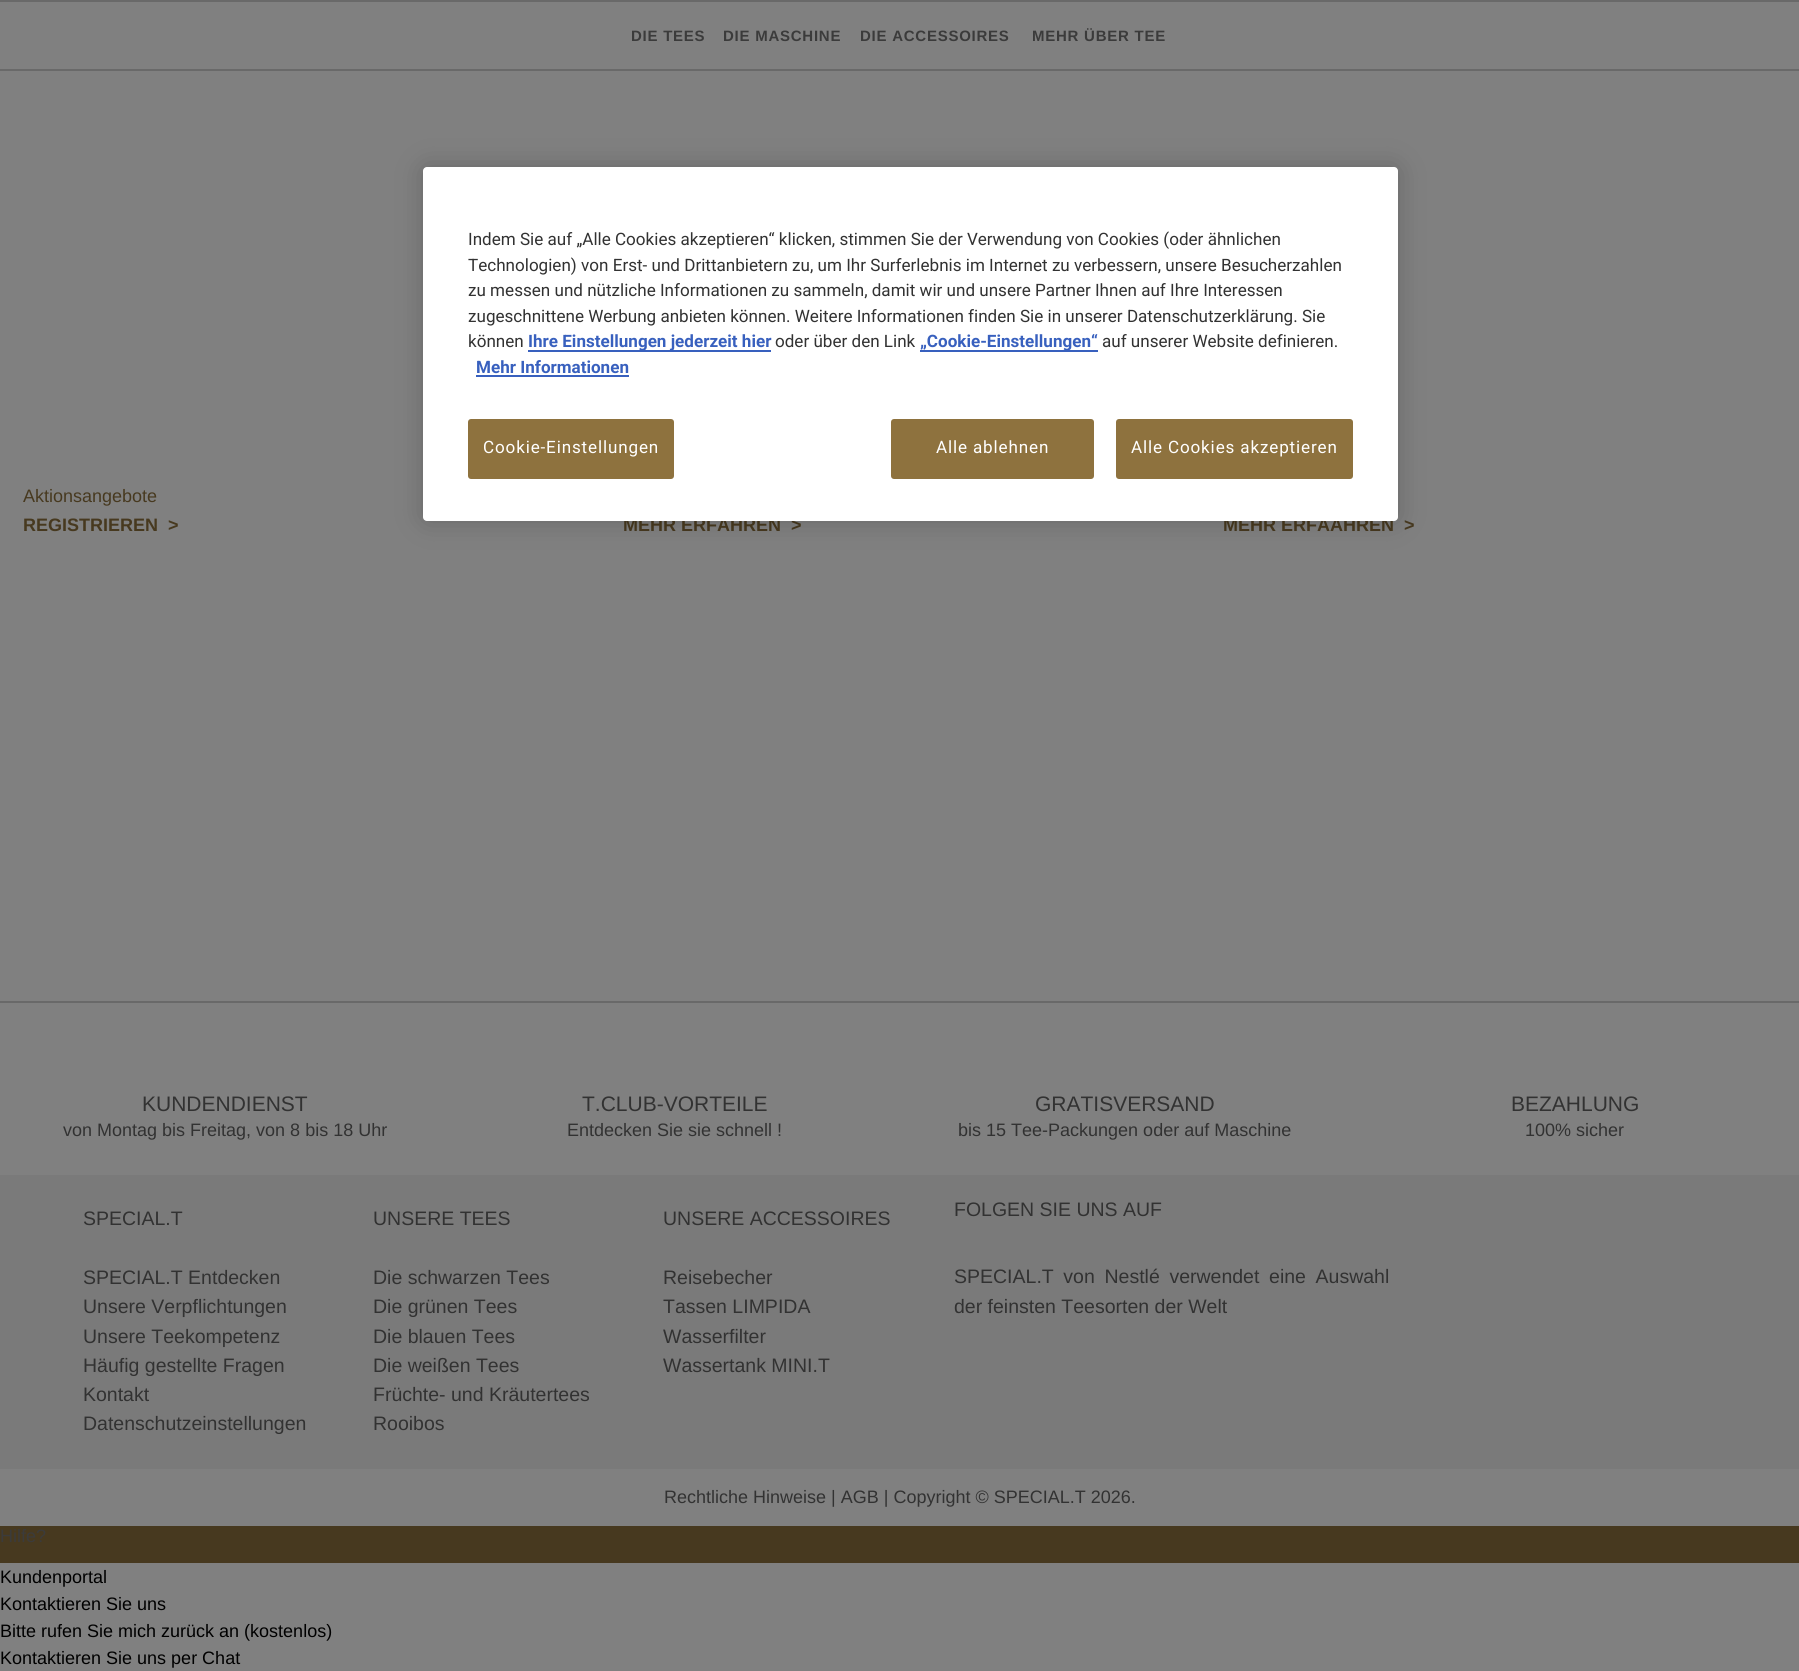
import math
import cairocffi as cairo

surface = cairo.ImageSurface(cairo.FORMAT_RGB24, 1799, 1671)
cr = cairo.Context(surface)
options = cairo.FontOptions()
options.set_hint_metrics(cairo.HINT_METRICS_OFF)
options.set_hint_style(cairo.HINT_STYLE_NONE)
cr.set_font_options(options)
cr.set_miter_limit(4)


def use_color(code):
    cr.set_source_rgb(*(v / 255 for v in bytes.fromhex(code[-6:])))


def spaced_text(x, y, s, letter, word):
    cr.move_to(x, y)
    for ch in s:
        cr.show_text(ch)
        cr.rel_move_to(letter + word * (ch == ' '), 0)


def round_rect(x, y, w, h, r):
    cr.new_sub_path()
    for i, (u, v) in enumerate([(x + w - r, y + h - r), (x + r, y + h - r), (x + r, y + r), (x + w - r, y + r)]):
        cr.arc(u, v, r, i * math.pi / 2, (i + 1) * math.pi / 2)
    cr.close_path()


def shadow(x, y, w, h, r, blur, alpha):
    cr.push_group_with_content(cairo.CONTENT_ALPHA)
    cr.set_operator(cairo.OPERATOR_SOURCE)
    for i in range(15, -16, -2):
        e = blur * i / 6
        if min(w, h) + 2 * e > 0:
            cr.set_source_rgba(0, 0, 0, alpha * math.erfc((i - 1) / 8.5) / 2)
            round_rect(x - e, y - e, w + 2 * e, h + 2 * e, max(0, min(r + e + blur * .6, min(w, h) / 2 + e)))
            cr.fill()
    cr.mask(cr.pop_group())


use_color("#808080")
cr.paint()
use_color("#696969")
cr.rectangle(0, 0, 1799, 2)
cr.fill()
cr.rectangle(0, 69, 1799, 2)
cr.fill()
cr.select_font_face("Liberation Sans", cairo.FONT_SLANT_NORMAL, cairo.FONT_WEIGHT_BOLD)
cr.set_font_size(15)
use_color("#3b3b3b")
spaced_text(631, 41, "DIE TEES", 0.75, 0)
spaced_text(723, 41, "DIE MASCHINE", 0.75, 0)
spaced_text(860, 41, "DIE ACCESSOIRES", 0.75, 0)
spaced_text(1032, 41, "MEHR ÜBER TEE", 0.75, 0)
cr.select_font_face("Liberation Sans")
cr.set_font_size(18)
use_color("#47391f")
cr.move_to(23, 502)
cr.show_text("Aktionsangebote")
cr.select_font_face("Liberation Sans", cairo.FONT_SLANT_NORMAL, cairo.FONT_WEIGHT_BOLD)
cr.move_to(23, 531)
cr.show_text("REGISTRIEREN  >")
cr.move_to(623, 531)
cr.show_text("MEHR ERFAHREN  >")
cr.move_to(1223, 531)
cr.show_text("MEHR ERFAAHREN  >")
use_color("#696969")
cr.rectangle(0, 1001, 1799, 2)
cr.fill()
cr.select_font_face("Liberation Sans")
cr.set_font_size(21)
use_color("#323232")
cr.move_to(142, 1111)
cr.show_text("KUNDENDIENST")
cr.set_font_size(18)
cr.move_to(63, 1136)
cr.show_text("von Montag bis Freitag, von 8 bis 18 Uhr")
cr.set_font_size(21)
cr.move_to(582, 1111)
cr.show_text("T.CLUB-VORTEILE")
cr.set_font_size(18)
cr.move_to(567, 1136)
cr.show_text("Entdecken Sie sie schnell !")
cr.set_font_size(21)
cr.move_to(1035, 1111)
cr.show_text("GRATISVERSAND")
cr.set_font_size(18)
cr.move_to(958, 1136)
cr.show_text("bis 15 Tee-Packungen oder auf Maschine")
cr.set_font_size(21)
cr.move_to(1511, 1111)
cr.show_text("BEZAHLUNG")
cr.set_font_size(18)
cr.move_to(1525, 1136)
cr.show_text("100% sicher")
use_color("#7a7a7a")
cr.rectangle(0, 1175, 1799, 294)
cr.fill()
cr.set_font_size(19.5)
use_color("#323232")
cr.move_to(83, 1225)
cr.show_text("SPECIAL.T")
cr.move_to(83, 1284)
cr.show_text("SPECIAL.T Entdecken")
cr.move_to(83, 1313)
cr.show_text("Unsere Verpflichtungen")
cr.move_to(83, 1343)
cr.show_text("Unsere Teekompetenz")
cr.move_to(83, 1372)
cr.show_text("Häufig gestellte Fragen")
cr.move_to(83, 1401)
cr.show_text("Kontakt")
cr.move_to(83, 1430)
cr.show_text("Datenschutzeinstellungen")
cr.move_to(373, 1225)
cr.show_text("UNSERE TEES")
cr.move_to(373, 1284)
cr.show_text("Die schwarzen Tees")
cr.move_to(373, 1313)
cr.show_text("Die grünen Tees")
cr.move_to(373, 1343)
cr.show_text("Die blauen Tees")
cr.move_to(373, 1372)
cr.show_text("Die weißen Tees")
cr.move_to(373, 1401)
cr.show_text("Früchte- und Kräutertees")
cr.move_to(373, 1430)
cr.show_text("Rooibos")
cr.move_to(663, 1225)
cr.show_text("UNSERE ACCESSOIRES")
cr.move_to(663, 1284)
cr.show_text("Reisebecher")
cr.move_to(663, 1313)
cr.show_text("Tassen LIMPIDA")
cr.move_to(663, 1343)
cr.show_text("Wasserfilter")
cr.move_to(663, 1372)
cr.show_text("Wassertank MINI.T")
cr.move_to(954, 1216)
cr.show_text("FOLGEN SIE UNS AUF")
spaced_text(954, 1283, "SPECIAL.T von Nestlé verwendet eine Auswahl", 0, 4.25)
cr.move_to(954, 1313)
cr.show_text("der feinsten Teesorten der Welt")
cr.set_font_size(18)
cr.move_to(664, 1503)
cr.show_text("Rechtliche Hinweise | AGB | Copyright © SPECIAL.T 2026.")
use_color("#47391f")
cr.rectangle(0, 1526, 1799, 37)
cr.fill()
use_color("#3b3b3b")
cr.move_to(0, 1542)
cr.show_text("Hilfe?")
use_color("#000000")
cr.move_to(0, 1583)
cr.show_text("Kundenportal")
cr.move_to(0, 1610)
cr.show_text("Kontaktieren Sie uns")
cr.move_to(0, 1637)
cr.show_text("Bitte rufen Sie mich zurück an (kostenlos)")
cr.move_to(0, 1664)
cr.show_text("Kontaktieren Sie uns per Chat")
use_color("#000000")
shadow(423, 167, 975, 354, 4, 13.5, 0.2)
use_color("#ffffff")
round_rect(423, 167, 975, 354, 4)
cr.fill()
cr.select_font_face("Roboto")
cr.set_font_size(17.07)
use_color("#323232")
cr.move_to(468, 245)
cr.show_text("Indem Sie auf „Alle Cookies akzeptieren“ klicken, stimmen Sie der Verwendung von Cookies (oder ähnlichen")
cr.move_to(468, 271)
cr.show_text("Technologien) von Erst- und Drittanbietern zu, um Ihr Surferlebnis im Internet zu verbessern, unsere Besucherzahlen")
cr.move_to(468, 296)
cr.show_text("zu messen und nützliche Informationen zu sammeln, damit wir und unsere Partner Ihnen auf Ihre Interessen")
cr.move_to(468, 322)
cr.show_text("zugeschnittene Werbung anbieten können. Weitere Informationen finden Sie in unserer Datenschutzerklärung. Sie")
cr.move_to(468, 347)
cr.show_text("können")
use_color("#3860be")
cr.rectangle(528, 350, 243, 2)
cr.fill()
cr.select_font_face("Roboto", cairo.FONT_SLANT_NORMAL, cairo.FONT_WEIGHT_BOLD)
cr.move_to(528, 347)
cr.show_text("Ihre Einstellungen jederzeit hier")
cr.select_font_face("Roboto")
use_color("#323232")
cr.move_to(775, 347)
cr.show_text("oder über den Link")
use_color("#3860be")
cr.rectangle(920, 350, 178, 2)
cr.fill()
cr.select_font_face("Roboto", cairo.FONT_SLANT_NORMAL, cairo.FONT_WEIGHT_BOLD)
cr.move_to(920, 347)
cr.show_text("„Cookie-Einstellungen“")
cr.select_font_face("Roboto")
use_color("#323232")
cr.move_to(1102, 347)
cr.show_text("auf unserer Website definieren.")
cr.select_font_face("Roboto", cairo.FONT_SLANT_NORMAL, cairo.FONT_WEIGHT_BOLD)
use_color("#3860be")
cr.move_to(476, 373)
cr.show_text("Mehr Informationen")
cr.rectangle(476, 375, 153, 2)
cr.fill()
use_color("#8e723e")
round_rect(468, 419, 206, 60, 3)
cr.fill()
cr.select_font_face("Roboto")
use_color("#ffffff")
spaced_text(483, 453, "Cookie-Einstellungen", 0.85, 0)
use_color("#8e723e")
round_rect(891, 419, 203, 60, 3)
cr.fill()
use_color("#ffffff")
spaced_text(936, 453, "Alle ablehnen", 0.85, 0)
use_color("#8e723e")
round_rect(1116, 419, 237, 60, 3)
cr.fill()
use_color("#ffffff")
spaced_text(1131, 453, "Alle Cookies akzeptieren", 0.85, 0)
surface.write_to_png("result.png")
